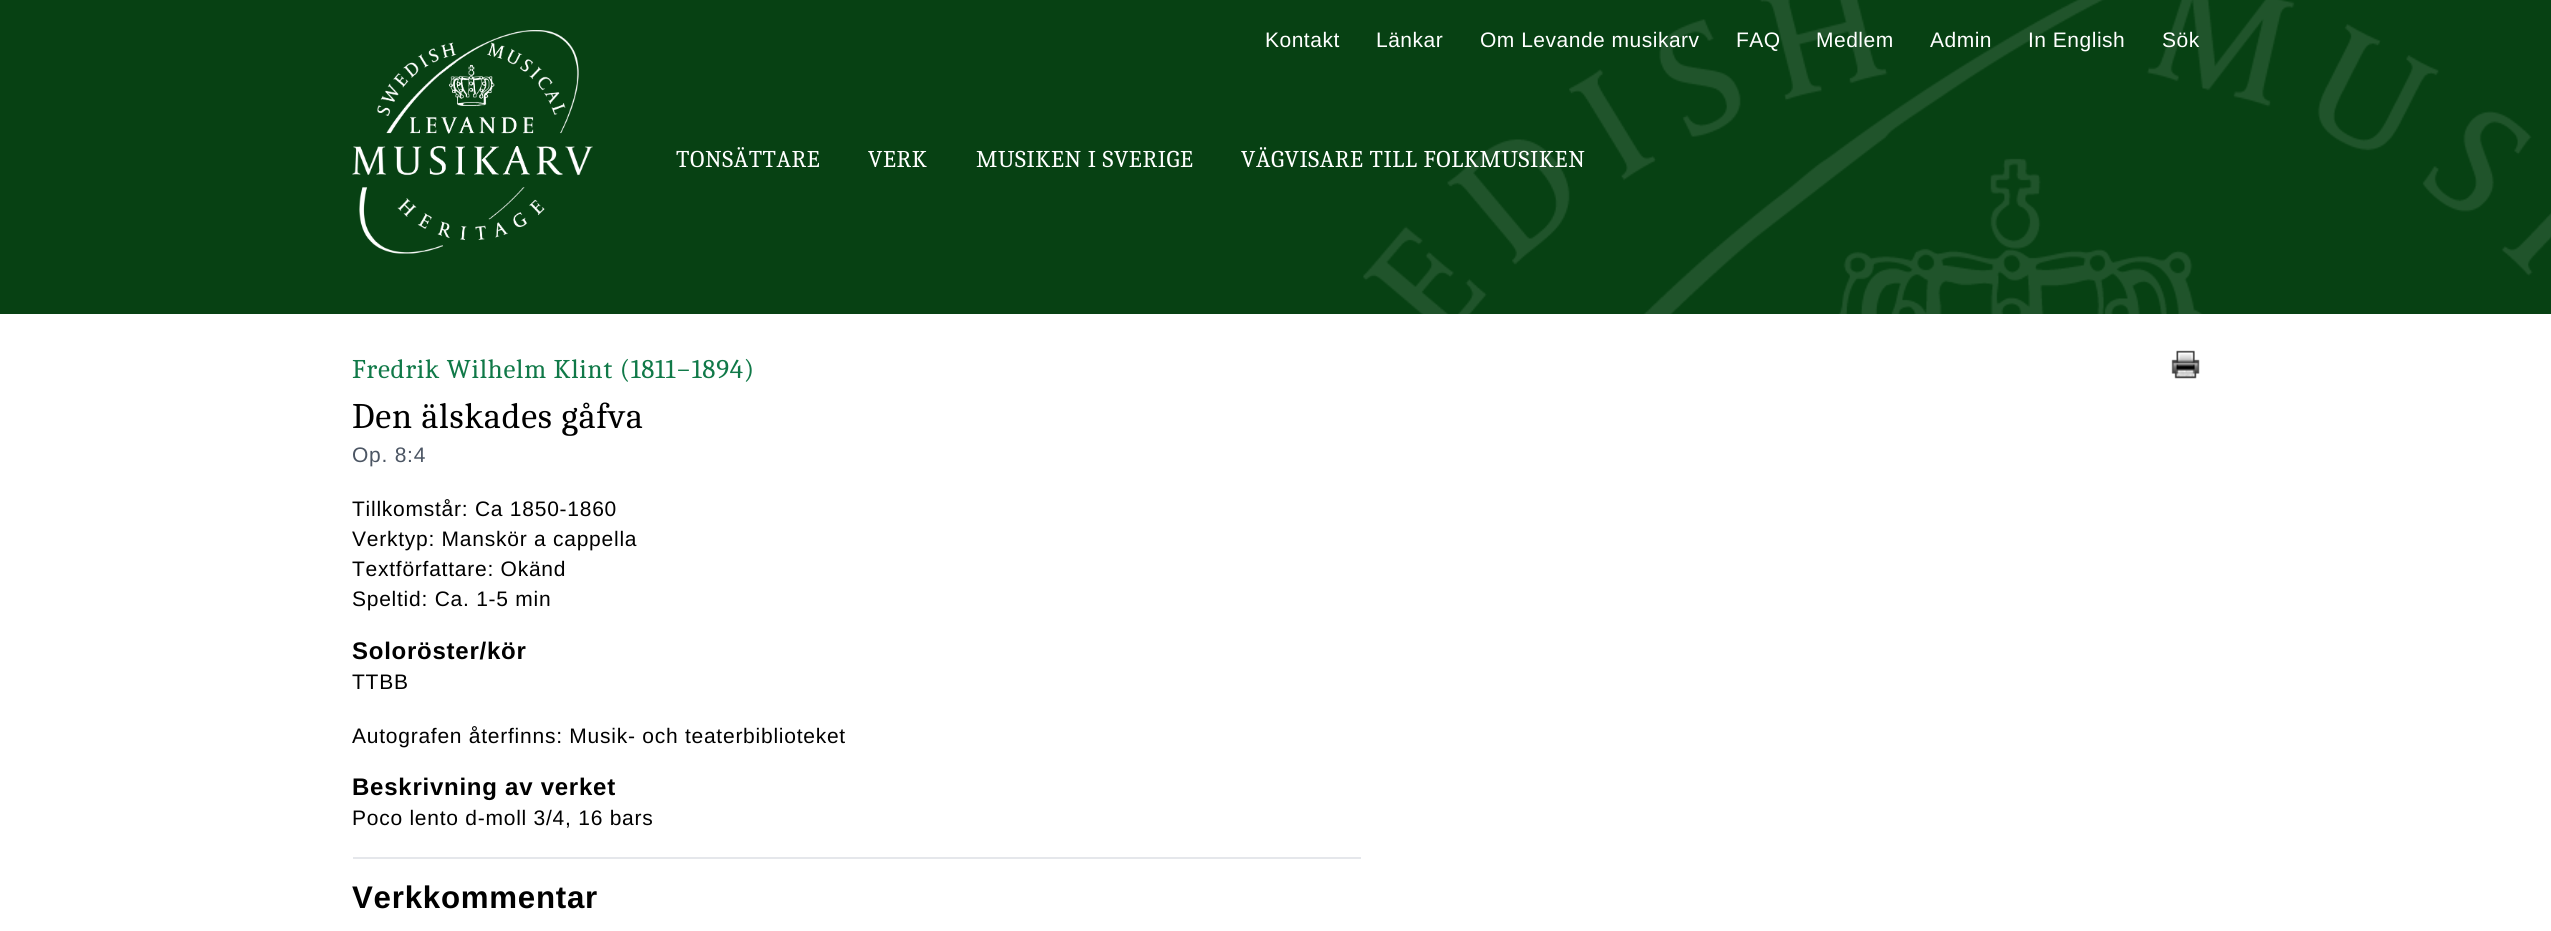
import math
import cairocffi as cairo

surface = cairo.ImageSurface(cairo.FORMAT_RGB24, 2551, 931)
cr = cairo.Context(surface)
options = cairo.FontOptions()
options.set_hint_metrics(cairo.HINT_METRICS_OFF)
options.set_hint_style(cairo.HINT_STYLE_NONE)
cr.set_font_options(options)
cr.set_miter_limit(4)


def use_color(code):
    cr.set_source_rgb(*(v / 255 for v in bytes.fromhex(code[-6:])))


def spaced_text(x, y, s, letter, word):
    cr.move_to(x, y)
    for ch in s:
        cr.show_text(ch)
        cr.rel_move_to(letter + word * (ch == ' '), 0)


def picture(path, x, y, w, h):
    cr.save()
    cr.set_source_surface(cairo.ImageSurface.create_from_png(path), x, y)
    cr.rectangle(x, y, w, h)
    cr.fill()
    cr.restore()


use_color("#074113")
cr.paint()
picture("img1.png", 1363, 0, 1188, 314)
picture("img2.png", 352, 30, 241, 224)
cr.select_font_face("Liberation Sans")
cr.set_font_size(21)
use_color("#ffffff")
spaced_text(1265, 47, "Kontakt", 0.5, 0)
spaced_text(1376, 47, "Länkar", 0.5, 0)
spaced_text(1480, 47, "Om Levande musikarv", 0.5, 0)
spaced_text(1736, 47, "FAQ", 0.5, 0)
spaced_text(1816, 47, "Medlem", 0.5, 0)
spaced_text(1930, 47, "Admin", 0.5, 0)
spaced_text(2028, 47, "In English", 0.5, 0)
spaced_text(2162, 47, "Sök", 0.5, 0)
cr.select_font_face("Caladea")
cr.set_font_size(24)
spaced_text(676, 167, "TONSÄTTARE", 0.6, 0)
spaced_text(868, 167, "VERK", 0.6, 0)
spaced_text(976, 167, "MUSIKEN I SVERIGE", 0.6, 0)
spaced_text(1241, 167, "VÄGVISARE TILL FOLKMUSIKEN", 0.6, 0)
cr.rectangle(0, 314, 2551, 617)
cr.fill()
cr.set_font_size(27)
use_color("#107948")
spaced_text(352, 378, "Fredrik Wilhelm Klint (1811−1894)", 0.75, 0)
picture("img3.png", 2171, 350, 29, 29)
cr.set_font_size(36)
use_color("#000000")
spaced_text(352, 428, "Den älskades gåfva", 0.75, 0)
cr.select_font_face("Liberation Sans")
cr.set_font_size(21)
use_color("#4b5563")
spaced_text(352, 462, "Op. 8:4", 0.75, 0)
use_color("#000000")
spaced_text(352, 516, "Tillkomstår: Ca 1850-1860", 0.75, 0)
spaced_text(352, 546, "Verktyp: Manskör a cappella", 0.75, 0)
spaced_text(352, 576, "Textförfattare: Okänd", 0.75, 0)
spaced_text(352, 606, "Speltid: Ca. 1-5 min", 0.75, 0)
cr.select_font_face("Liberation Sans", cairo.FONT_SLANT_NORMAL, cairo.FONT_WEIGHT_BOLD)
cr.set_font_size(24)
spaced_text(352, 659, "Soloröster/kör", 0.75, 0)
cr.select_font_face("Liberation Sans")
cr.set_font_size(21)
spaced_text(352, 689, "TTBB", 0.75, 0)
spaced_text(352, 743, "Autografen återfinns: Musik- och teaterbiblioteket", 0.75, 0)
cr.select_font_face("Liberation Sans", cairo.FONT_SLANT_NORMAL, cairo.FONT_WEIGHT_BOLD)
cr.set_font_size(24)
spaced_text(352, 795, "Beskrivning av verket", 0.75, 0)
cr.select_font_face("Liberation Sans")
cr.set_font_size(21)
spaced_text(352, 825, "Poco lento d-moll 3/4, 16 bars", 0.75, 0)
use_color("#e5e7eb")
cr.rectangle(353, 857, 1008, 2)
cr.fill()
cr.select_font_face("Liberation Sans", cairo.FONT_SLANT_NORMAL, cairo.FONT_WEIGHT_BOLD)
cr.set_font_size(31.25)
use_color("#000000")
spaced_text(352, 908, "Verkkommentar", 0.75, 0)
surface.write_to_png("result.png")
